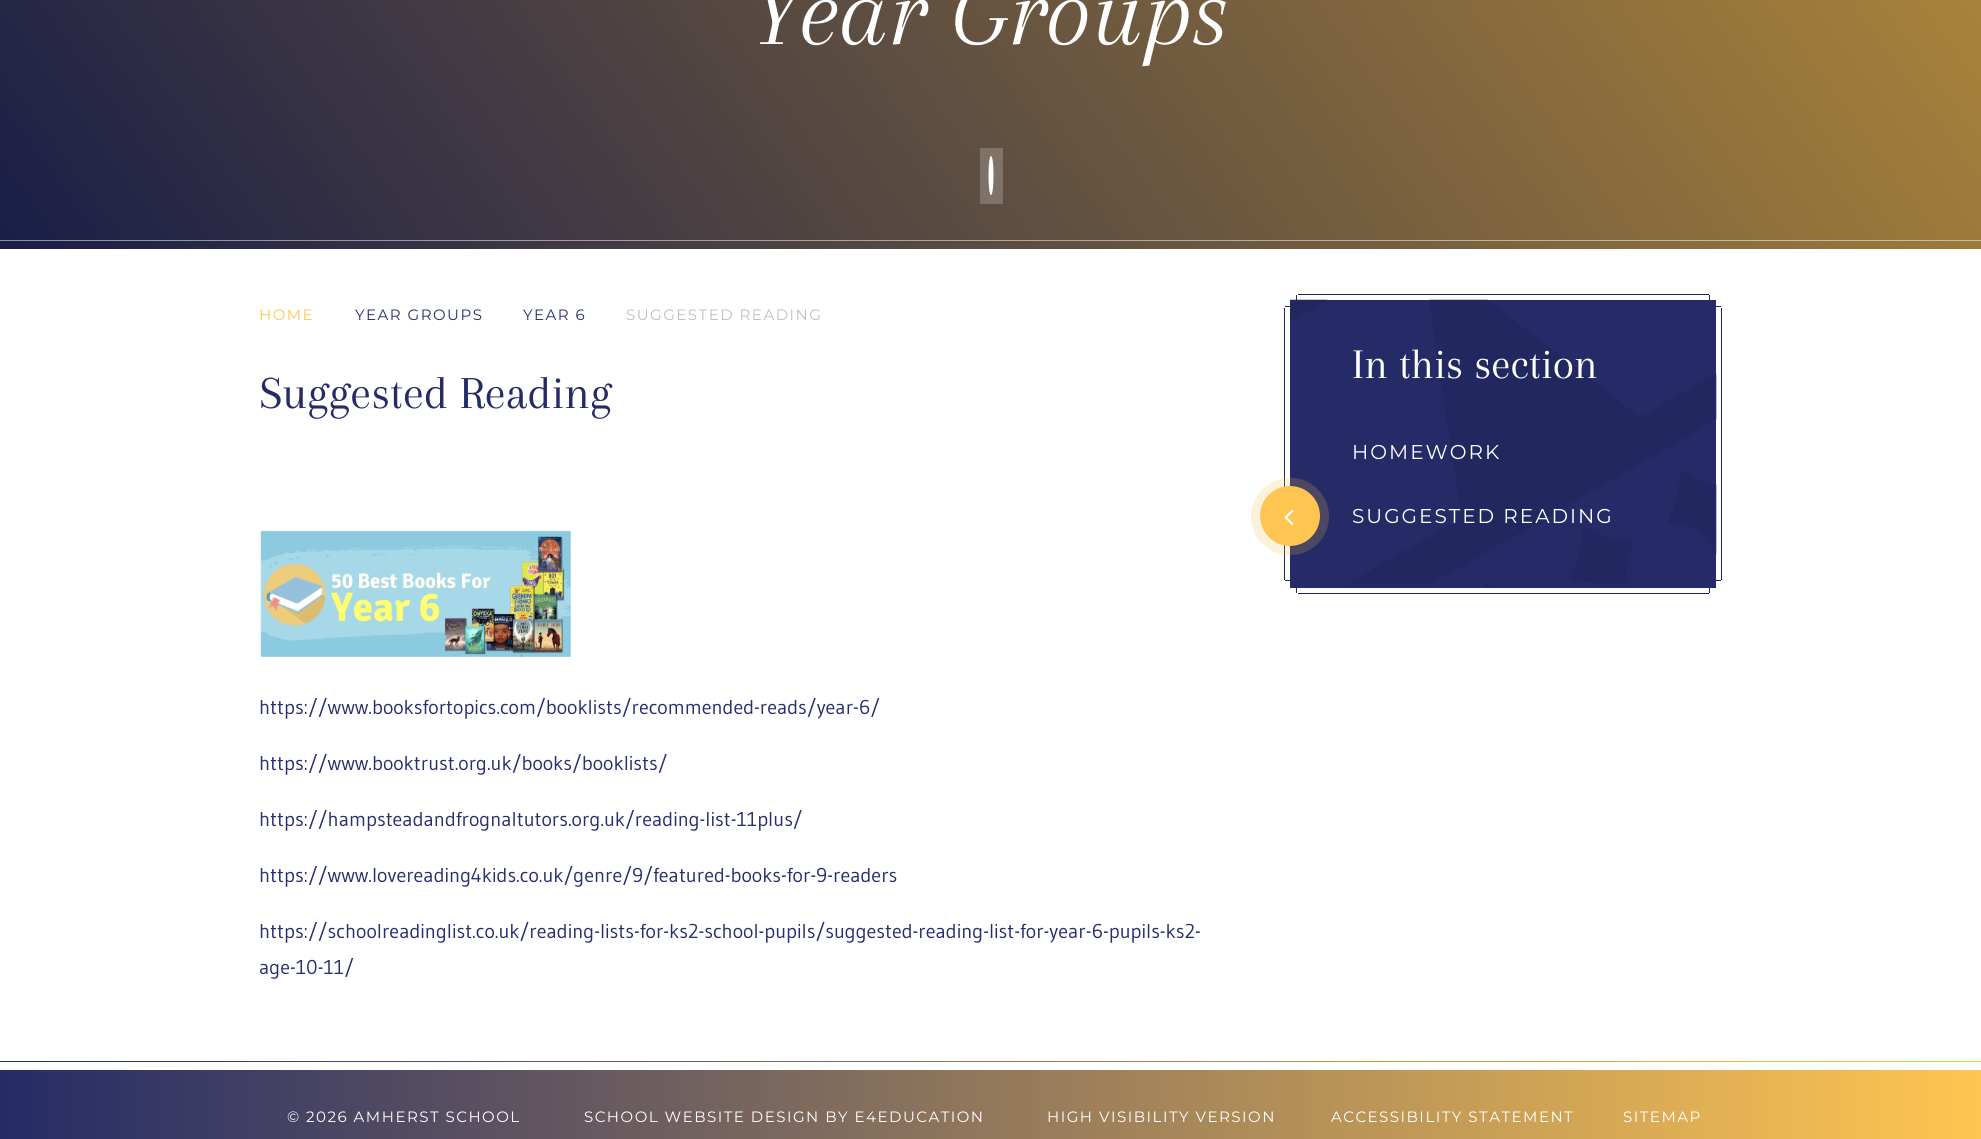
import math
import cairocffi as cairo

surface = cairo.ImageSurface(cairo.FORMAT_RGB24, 1981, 1139)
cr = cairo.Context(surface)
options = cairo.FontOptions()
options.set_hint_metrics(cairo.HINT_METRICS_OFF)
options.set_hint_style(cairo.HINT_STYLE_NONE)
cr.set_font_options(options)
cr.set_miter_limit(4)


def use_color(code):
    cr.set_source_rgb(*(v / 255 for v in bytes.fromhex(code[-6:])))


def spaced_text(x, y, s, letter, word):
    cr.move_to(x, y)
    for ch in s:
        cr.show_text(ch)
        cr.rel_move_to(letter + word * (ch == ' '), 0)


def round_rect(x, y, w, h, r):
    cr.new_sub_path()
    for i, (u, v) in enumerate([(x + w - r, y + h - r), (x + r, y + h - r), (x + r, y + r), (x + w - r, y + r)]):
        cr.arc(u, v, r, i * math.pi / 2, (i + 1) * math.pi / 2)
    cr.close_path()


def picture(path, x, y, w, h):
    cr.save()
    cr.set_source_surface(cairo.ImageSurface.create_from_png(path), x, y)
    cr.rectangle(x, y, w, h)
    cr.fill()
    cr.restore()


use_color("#ffffff")
cr.paint()
gradient = cairo.LinearGradient(230, 565, 1751, -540)
gradient.add_color_stop_rgba(0, 0.102, 0.118, 0.278, 1)
gradient.add_color_stop_rgba(1, 0.702, 0.541, 0.224, 1)
cr.set_source(gradient)
cr.rectangle(0, 0, 1981, 249)
cr.fill()
gradient = cairo.LinearGradient(230, 565, 1751, -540)
gradient.add_color_stop_rgba(0, 0.553, 0.561, 0.639, 1)
gradient.add_color_stop_rgba(1, 0.851, 0.773, 0.612, 1)
cr.set_source(gradient)
cr.rectangle(0, 240, 1981, 1)
cr.fill()
gradient = cairo.LinearGradient(230, 565, 1751, -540)
gradient.add_color_stop_rgba(0, 0.282, 0.294, 0.424, 1)
gradient.add_color_stop_rgba(1, 0.761, 0.631, 0.38, 1)
cr.set_source(gradient)
cr.rectangle(980, 148, 23, 56)
cr.fill()
cr.select_font_face("Arapey", cairo.FONT_SLANT_ITALIC)
cr.set_font_size(100)
use_color("#ffffff")
cr.move_to(753, 44)
cr.show_text("Year Groups")
cr.new_path()
cr.move_to(991, 156)
cr.curve_to(992.5, 156, 993.5, 164.5, 993.5, 175.5)
cr.curve_to(993.5, 186.5, 992.5, 195, 991, 195)
cr.curve_to(989.5, 195, 988.5, 186.5, 988.5, 175.5)
cr.curve_to(988.5, 164.5, 989.5, 156, 991, 156)
cr.close_path()
cr.fill()
cr.select_font_face("Montserrat Thin")
cr.set_font_size(15)
use_color("#ffc551")
spaced_text(259, 320, "HOME", 1.5, 0)
use_color("#272d6e")
spaced_text(355, 320, "YEAR GROUPS", 1.5, 0)
spaced_text(523, 320, "YEAR 6", 1.5, 0)
use_color("#bfbfbf")
spaced_text(626, 320, "SUGGESTED READING", 1.5, 0)
cr.select_font_face("Arapey")
cr.set_font_size(47.5)
use_color("#252b66")
cr.move_to(259, 408)
cr.show_text("Suggested Reading")
picture("img1.png", 260, 530, 311, 127)
cr.select_font_face("Gudea")
cr.set_font_size(20)
use_color("#272d6e")
cr.move_to(259, 714)
cr.show_text("https://www.booksfortopics.com/booklists/recommended-reads/year-6/")
cr.move_to(259, 770)
cr.show_text("https://www.booktrust.org.uk/books/booklists/")
cr.move_to(259, 826)
cr.show_text("https://hampsteadandfrognaltutors.org.uk/reading-list-11plus/")
cr.move_to(259, 882)
cr.show_text("https://www.lovereading4kids.co.uk/genre/9/featured-books-for-9-readers")
cr.move_to(259, 938)
cr.show_text("https://schoolreadinglist.co.uk/reading-lists-for-ks2-school-pupils/suggested-reading-list-for-year-6-pupils-ks2-")
cr.move_to(259, 974)
cr.show_text("age-10-11/")
use_color("#1f2561")
cr.rectangle(1285, 306, 436, 1)
cr.fill()
cr.rectangle(1284, 308, 1, 272)
cr.fill()
cr.rectangle(1721, 308, 1, 272)
cr.fill()
cr.rectangle(1296, 295, 1, 298)
cr.fill()
cr.rectangle(1709, 295, 1, 298)
cr.fill()
cr.rectangle(1285, 580, 436, 1)
cr.fill()
cr.rectangle(1298, 294, 411, 1)
cr.fill()
cr.rectangle(1298, 593, 411, 1)
cr.fill()
use_color("#252b66")
cr.rectangle(1290, 300, 426, 288)
cr.fill()
picture("img2.png", 1290, 299, 427, 288)
cr.select_font_face("Arapey")
cr.set_font_size(43.75)
use_color("#ffffff")
cr.move_to(1352, 378)
cr.show_text("In this section")
cr.select_font_face("Montserrat Thin")
cr.set_font_size(20)
spaced_text(1352, 459, "HOMEWORK", 2, 0)
round_rect(1255.5, 482.5, 69, 68, 34)
cr.set_source_rgba(0.945, 0.729, 0.294, 0.2)
cr.set_line_width(9)
cr.stroke()
use_color("#ffc551")
cr.arc(1290, 516, 30, 0, 2 * math.pi)
cr.fill()
picture("img3.png", 1284, 509, 10, 16)
use_color("#ffffff")
spaced_text(1352, 523, "SUGGESTED READING", 2, 0)
gradient = cairo.LinearGradient(0, 1116, 1981, 1116)
gradient.add_color_stop_rgba(0, 0.145, 0.169, 0.4, 1)
gradient.add_color_stop_rgba(1, 1, 0.773, 0.318, 1)
cr.set_source(gradient)
cr.rectangle(0, 1070, 1981, 69)
cr.fill()
gradient = cairo.LinearGradient(0, 1062, 1981, 1062)
gradient.add_color_stop_rgba(0, 0.145, 0.169, 0.4, 1)
gradient.add_color_stop_rgba(1, 1, 0.773, 0.318, 1)
cr.set_source(gradient)
cr.rectangle(0, 1061, 1981, 1)
cr.fill()
cr.set_font_size(15)
use_color("#ffffff")
spaced_text(287, 1122, "© 2026 AMHERST SCHOOL", 1.5, 0)
spaced_text(584, 1122, "SCHOOL WEBSITE DESIGN BY E4EDUCATION", 1.5, 0)
spaced_text(1047, 1122, "HIGH VISIBILITY VERSION", 1.5, 0)
spaced_text(1331, 1122, "ACCESSIBILITY STATEMENT", 1.5, 0)
spaced_text(1623, 1122, "SITEMAP", 1.5, 0)
surface.write_to_png("result.png")
